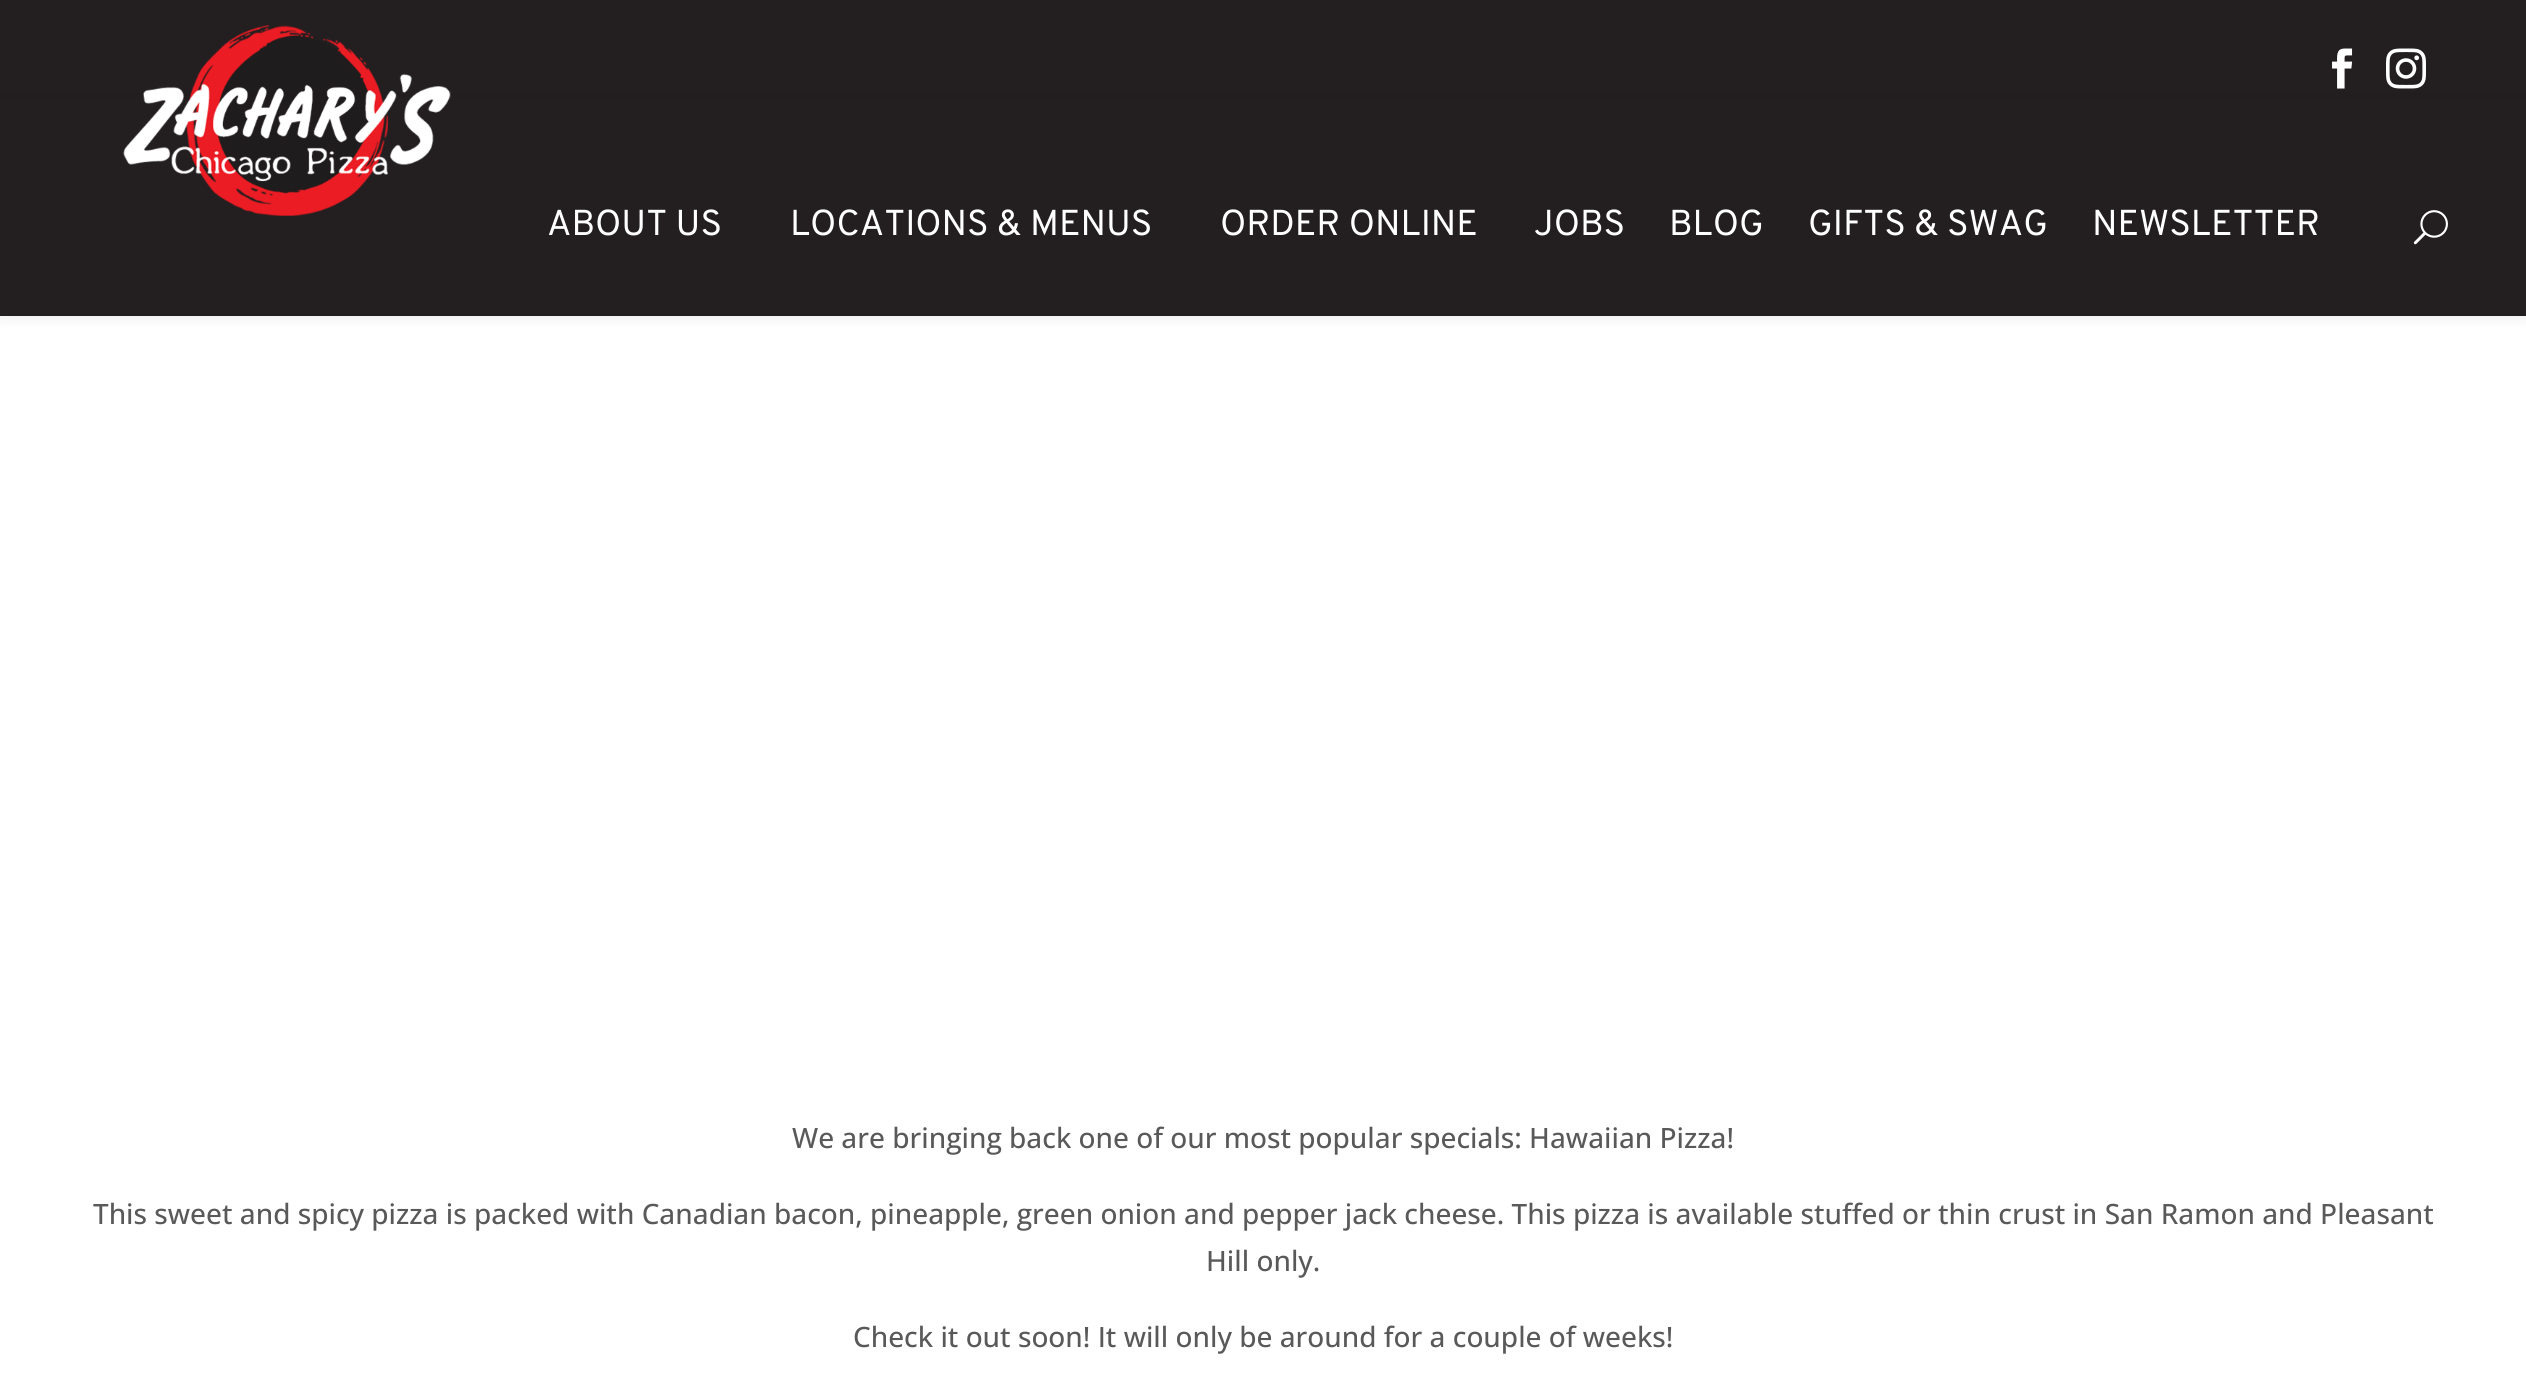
import math
import cairocffi as cairo

surface = cairo.ImageSurface(cairo.FORMAT_RGB24, 2526, 1396)
cr = cairo.Context(surface)
options = cairo.FontOptions()
options.set_hint_metrics(cairo.HINT_METRICS_OFF)
options.set_hint_style(cairo.HINT_STYLE_NONE)
cr.set_font_options(options)
cr.set_miter_limit(4)


def use_color(code):
    cr.set_source_rgb(*(v / 255 for v in bytes.fromhex(code[-6:])))


def round_rect(x, y, w, h, r):
    cr.new_sub_path()
    for i, (u, v) in enumerate([(x + w - r, y + h - r), (x + r, y + h - r), (x + r, y + r), (x + w - r, y + r)]):
        cr.arc(u, v, r, i * math.pi / 2, (i + 1) * math.pi / 2)
    cr.close_path()


def shadow(x, y, w, h, r, blur, alpha):
    cr.push_group_with_content(cairo.CONTENT_ALPHA)
    cr.set_operator(cairo.OPERATOR_SOURCE)
    for i in range(15, -16, -2):
        e = blur * i / 6
        if min(w, h) + 2 * e > 0:
            cr.set_source_rgba(0, 0, 0, alpha * math.erfc((i - 1) / 8.5) / 2)
            round_rect(x - e, y - e, w + 2 * e, h + 2 * e, max(0, min(r + e + blur * .6, min(w, h) / 2 + e)))
            cr.fill()
    cr.mask(cr.pop_group())


def picture(path, x, y, w, h):
    cr.save()
    cr.set_source_surface(cairo.ImageSurface.create_from_png(path), x, y)
    cr.rectangle(x, y, w, h)
    cr.fill()
    cr.restore()


use_color("#ffffff")
cr.paint()
use_color("#231f20")
cr.rectangle(0, 0, 2526, 98)
cr.fill()
picture("img1.png", 2332, 48, 21, 41)
picture("img2.png", 2386, 48, 40, 41)
use_color("#000000")
shadow(0, 98, 2526, 218, 0, 7, 0.1)
use_color("#231f20")
cr.rectangle(0, 98, 2526, 218)
cr.fill()
picture("img3.png", 123, 25, 328, 191)
cr.select_font_face("Overpass")
cr.set_font_size(36)
use_color("#ffffff")
cr.move_to(547, 235)
cr.show_text("ABOUT US")
cr.move_to(790, 235)
cr.show_text("LOCATIONS & MENUS")
cr.move_to(1220, 235)
cr.show_text("ORDER ONLINE")
cr.move_to(1534, 235)
cr.show_text("JOBS")
cr.move_to(1669, 235)
cr.show_text("BLOG")
cr.move_to(1808, 235)
cr.show_text("GIFTS & SWAG")
cr.move_to(2092, 235)
cr.show_text("NEWSLETTER")
picture("img4.png", 2413, 210, 35, 35)
cr.select_font_face("Open Sans Medium")
cr.set_font_size(28)
use_color("#595959")
cr.move_to(792, 1148)
cr.show_text("We are bringing back one of our most popular specials: Hawaiian Pizza!")
cr.move_to(93, 1224)
cr.show_text("This sweet and spicy pizza is packed with Canadian bacon, pineapple, green onion and pepper jack cheese. This pizza is available stuffed or thin crust in San Ramon and Pleasant")
cr.move_to(1206, 1271)
cr.show_text("Hill only.")
cr.move_to(853, 1347)
cr.show_text("Check it out soon! It will only be around for a couple of weeks!")
surface.write_to_png("result.png")
